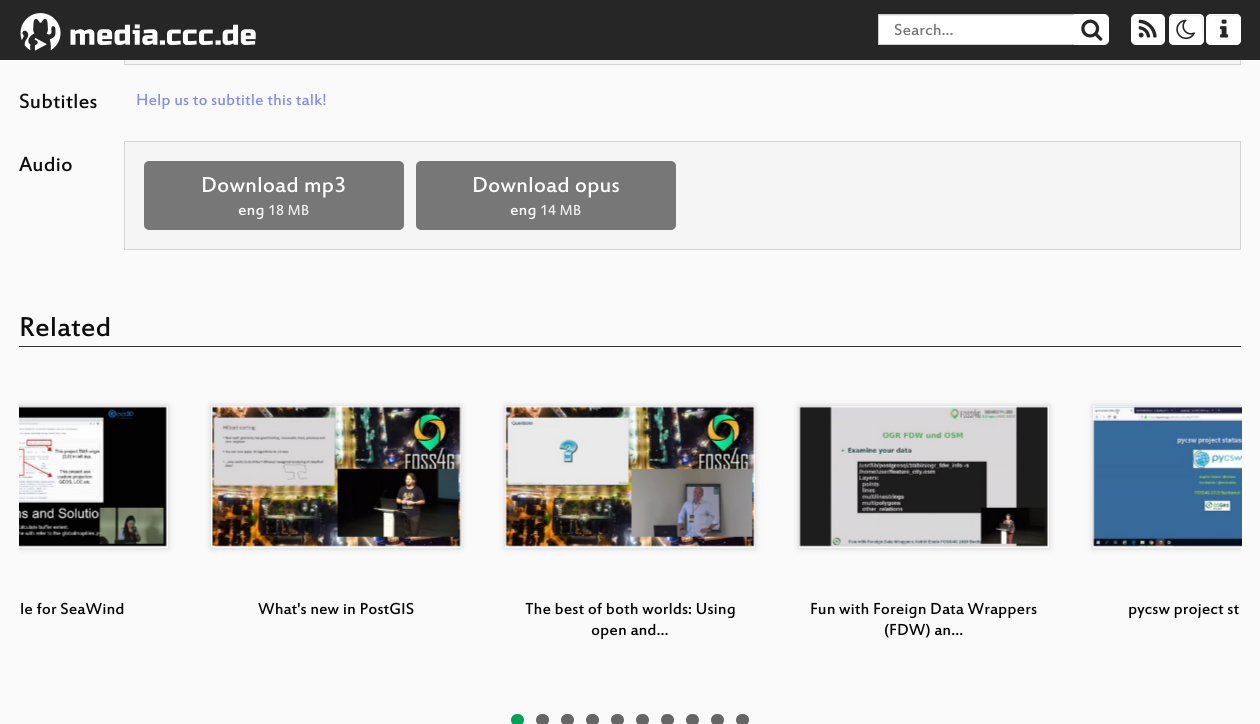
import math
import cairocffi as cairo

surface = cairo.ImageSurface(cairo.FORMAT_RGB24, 1260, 724)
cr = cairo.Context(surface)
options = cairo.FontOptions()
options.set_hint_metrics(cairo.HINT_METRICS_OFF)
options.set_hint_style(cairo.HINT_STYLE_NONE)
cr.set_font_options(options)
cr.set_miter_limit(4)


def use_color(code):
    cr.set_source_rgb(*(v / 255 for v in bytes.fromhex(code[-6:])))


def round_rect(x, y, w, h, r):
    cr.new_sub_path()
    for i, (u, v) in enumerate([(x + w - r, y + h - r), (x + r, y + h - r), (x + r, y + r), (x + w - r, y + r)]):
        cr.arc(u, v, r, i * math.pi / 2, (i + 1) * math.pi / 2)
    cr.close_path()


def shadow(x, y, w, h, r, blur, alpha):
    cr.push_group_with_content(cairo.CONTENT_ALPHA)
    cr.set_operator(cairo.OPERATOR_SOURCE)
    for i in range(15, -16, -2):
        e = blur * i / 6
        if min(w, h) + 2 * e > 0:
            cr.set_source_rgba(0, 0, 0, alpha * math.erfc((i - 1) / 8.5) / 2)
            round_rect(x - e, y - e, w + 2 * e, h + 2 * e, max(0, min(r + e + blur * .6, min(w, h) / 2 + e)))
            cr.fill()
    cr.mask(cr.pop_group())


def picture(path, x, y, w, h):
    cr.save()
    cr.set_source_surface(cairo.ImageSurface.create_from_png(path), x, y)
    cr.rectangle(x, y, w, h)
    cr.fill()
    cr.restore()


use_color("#fafafa")
cr.paint()
use_color("#f5f5f5")
cr.rectangle(125, 60, 1115, 4)
cr.fill()
cr.rectangle(124.5, -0.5, 1116, 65)
use_color("#d4d4d4")
cr.set_line_width(1)
cr.stroke()
use_color("#262626")
cr.rectangle(0, 0, 1260, 60)
cr.fill()
picture("img1.png", 20, 13, 236, 38)
use_color("#ffffff")
cr.rectangle(879, 16, 195, 28)
cr.fill()
use_color("#ececec")
cr.rectangle(879, 15, 195, 1)
cr.fill()
cr.rectangle(878.5, 14.5, 196, 30)
use_color("#cccccc")
cr.stroke()
cr.select_font_face("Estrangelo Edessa")
cr.set_font_size(17.5)
use_color("#777777")
cr.move_to(894, 35)
cr.show_text("Search…")
use_color("#ffffff")
cr.new_path()
cr.move_to(1074.5, 14.5)
cr.line_to(1104, 14.5)
cr.curve_to(1106.5, 14.5, 1108.5, 16.5, 1108.5, 19)
cr.line_to(1108.5, 40)
cr.curve_to(1108.5, 42.5, 1106.5, 44.5, 1104, 44.5)
cr.line_to(1074.5, 44.5)
cr.close_path()
cr.fill_preserve()
cr.stroke()
picture("img2.png", 1081, 19, 22, 22)
round_rect(1131.5, 14.5, 33, 30, 4.5)
cr.fill_preserve()
cr.stroke()
picture("img3.png", 1138, 19, 19, 19)
round_rect(1169, 14, 35, 31, 5)
cr.fill()
use_color("#ececec")
cr.set_fill_rule(cairo.FILL_RULE_EVEN_ODD)
cr.new_path()
cr.move_to(1174, 16)
cr.line_to(1195, 16)
cr.curve_to(1202.5, 16, 1202.5, 17.5, 1202, 23)
cr.line_to(1202, 27)
cr.curve_to(1202, 36, 1203, 40.5, 1202, 42.5)
cr.curve_to(1202.5, 42, 1203, 41, 1203, 40)
cr.line_to(1203, 19)
cr.curve_to(1203, 17, 1201, 15, 1199, 15)
cr.line_to(1174, 15)
cr.curve_to(1172, 15, 1170, 17, 1170, 19)
cr.line_to(1170, 24)
cr.curve_to(1170, 21, 1170, 16, 1174, 16)
cr.close_path()
cr.move_to(1170, 41)
cr.line_to(1170, 38)
cr.close_path()
cr.fill()
round_rect(1169.5, 14.5, 34, 30, 4.5)
use_color("#ffffff")
cr.stroke()
picture("img4.png", 1176, 19, 19, 21)
round_rect(1206, 14, 35, 31, 5)
cr.fill()
use_color("#ececec")
cr.new_path()
cr.move_to(1211, 16)
cr.line_to(1232, 16)
cr.curve_to(1238.5, 16, 1240, 17, 1240, 21)
cr.line_to(1240, 19)
cr.curve_to(1240, 17, 1238, 15, 1236, 15)
cr.line_to(1212, 15)
cr.curve_to(1210, 15, 1208, 16.5, 1208, 19)
cr.curve_to(1208.5, 17, 1209, 16, 1211, 16)
cr.close_path()
cr.move_to(1208, 40.5)
cr.line_to(1208, 38)
cr.close_path()
cr.fill()
round_rect(1206.5, 14.5, 34, 30, 4.5)
use_color("#ffffff")
cr.stroke()
picture("img5.png", 1220, 19, 9, 19)
cr.set_font_size(22.5)
use_color("#0d0d0d")
cr.move_to(19, 108)
cr.show_text("Subtitles")
cr.set_font_size(17.5)
use_color("#818cf8")
cr.move_to(136, 105)
cr.show_text("Help us to subtitle this talk!")
cr.set_font_size(22.5)
use_color("#0d0d0d")
cr.move_to(19, 171)
cr.show_text("Audio")
use_color("#f5f5f5")
cr.rectangle(124.5, 141.5, 1116, 108)
cr.fill_preserve()
use_color("#d4d4d4")
cr.stroke()
use_color("#777777")
round_rect(144, 161, 260, 69, 5)
cr.fill()
cr.set_font_size(23.75)
use_color("#ffffff")
cr.move_to(201, 192)
cr.show_text("Download mp3")
cr.set_font_size(17.5)
cr.move_to(238, 215)
cr.show_text("eng")
cr.set_font_size(16)
use_color("#eeeeee")
cr.move_to(268, 215)
cr.show_text("18 MB")
use_color("#777777")
round_rect(416, 161, 260, 69, 5)
cr.fill()
cr.set_font_size(23.75)
use_color("#ffffff")
cr.move_to(472, 192)
cr.show_text("Download opus")
cr.set_font_size(17.5)
cr.move_to(510, 215)
cr.show_text("eng")
cr.set_font_size(16)
use_color("#eeeeee")
cr.move_to(540, 215)
cr.show_text("14 MB")
use_color("#323232")
cr.rectangle(19, 346, 1222, 1)
cr.fill()
cr.set_font_size(30)
use_color("#0d0d0d")
cr.move_to(19, 336)
cr.show_text("Related")
cr.save()
cr.set_fill_rule(cairo.FILL_RULE_WINDING)
cr.rectangle(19, 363, 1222, 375)
cr.clip()
cr.set_fill_rule(cairo.FILL_RULE_EVEN_ODD)
cr.new_path()
cr.move_to(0, 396)
cr.line_to(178, 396)
cr.line_to(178, 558)
cr.line_to(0, 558)
cr.close_path()
cr.move_to(-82, 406)
cr.line_to(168, 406)
cr.line_to(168, 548)
cr.line_to(-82, 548)
cr.close_path()
cr.clip()
use_color("#cccccc")
shadow(-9, 406, 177, 142, 0, 3, 1)
cr.restore()
cr.save()
cr.set_fill_rule(cairo.FILL_RULE_WINDING)
cr.rectangle(19, 363, 1222, 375)
cr.clip()
cr.rectangle(-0.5, 406.5, 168, 141)
cr.set_source_rgba(1, 1, 1, 0.3)
cr.stroke()
cr.restore()
picture("img6.png", 19, 406, 148, 141)
cr.set_font_size(17.5)
use_color("#000000")
cr.move_to(20, 614)
cr.show_text("le for SeaWind")
cr.save()
cr.new_path()
cr.move_to(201, 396)
cr.line_to(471, 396)
cr.line_to(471, 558)
cr.line_to(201, 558)
cr.close_path()
cr.move_to(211, 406)
cr.line_to(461, 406)
cr.line_to(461, 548)
cr.line_to(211, 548)
cr.close_path()
cr.clip()
use_color("#cccccc")
shadow(211, 406, 250, 142, 0, 3, 1)
cr.restore()
cr.rectangle(211.5, 406.5, 249, 141)
cr.set_source_rgba(1, 1, 1, 0.3)
cr.stroke()
picture("img7.png", 212, 406, 249, 141)
use_color("#000000")
cr.move_to(258, 614)
cr.show_text("What's new in PostGIS")
cr.save()
cr.new_path()
cr.move_to(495, 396)
cr.line_to(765, 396)
cr.line_to(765, 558)
cr.line_to(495, 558)
cr.close_path()
cr.move_to(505, 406)
cr.line_to(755, 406)
cr.line_to(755, 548)
cr.line_to(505, 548)
cr.close_path()
cr.clip()
use_color("#cccccc")
shadow(505, 406, 250, 142, 0, 3, 1)
cr.restore()
cr.rectangle(505.5, 406.5, 249, 141)
cr.set_source_rgba(1, 1, 1, 0.3)
cr.stroke()
picture("img8.png", 505, 406, 250, 141)
use_color("#000000")
cr.move_to(525, 614)
cr.show_text("The best of both worlds: Using")
cr.move_to(591, 635)
cr.show_text("open and…")
cr.save()
cr.new_path()
cr.move_to(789, 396)
cr.line_to(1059, 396)
cr.line_to(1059, 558)
cr.line_to(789, 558)
cr.close_path()
cr.move_to(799, 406)
cr.line_to(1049, 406)
cr.line_to(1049, 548)
cr.line_to(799, 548)
cr.close_path()
cr.clip()
use_color("#cccccc")
shadow(799, 406, 250, 142, 0, 3, 1)
cr.restore()
cr.rectangle(799.5, 406.5, 249, 141)
cr.set_source_rgba(1, 1, 1, 0.3)
cr.stroke()
picture("img9.png", 799, 406, 249, 141)
use_color("#000000")
cr.move_to(810, 614)
cr.show_text("Fun with Foreign Data Wrappers")
cr.move_to(884, 635)
cr.show_text("(FDW) an…")
cr.save()
cr.set_fill_rule(cairo.FILL_RULE_WINDING)
cr.rectangle(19, 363, 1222, 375)
cr.clip()
cr.set_fill_rule(cairo.FILL_RULE_EVEN_ODD)
cr.new_path()
cr.move_to(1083, 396)
cr.line_to(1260, 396)
cr.line_to(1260, 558)
cr.line_to(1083, 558)
cr.close_path()
cr.move_to(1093, 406)
cr.line_to(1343, 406)
cr.line_to(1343, 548)
cr.line_to(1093, 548)
cr.close_path()
cr.clip()
use_color("#cccccc")
shadow(1093, 406, 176, 142, 0, 3, 1)
cr.restore()
cr.save()
cr.set_fill_rule(cairo.FILL_RULE_WINDING)
cr.rectangle(19, 363, 1222, 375)
cr.clip()
cr.rectangle(1093.5, 406.5, 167, 141)
cr.set_source_rgba(1, 1, 1, 0.3)
cr.stroke()
cr.restore()
picture("img10.png", 1093, 406, 149, 141)
cr.move_to(1128, 614)
cr.show_text("pycsw project st")
use_color("#00a356")
round_rect(511, 714, 13, 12, 6)
cr.fill()
use_color("#666666")
round_rect(536, 714, 13, 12, 6)
cr.fill()
round_rect(561, 714, 13, 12, 6)
cr.fill()
round_rect(586, 714, 13, 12, 6)
cr.fill()
round_rect(611, 714, 13, 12, 6)
cr.fill()
round_rect(636, 714, 13, 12, 6)
cr.fill()
round_rect(661, 714, 13, 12, 6)
cr.fill()
round_rect(686, 714, 13, 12, 6)
cr.fill()
round_rect(711, 714, 13, 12, 6)
cr.fill()
round_rect(736, 714, 13, 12, 6)
cr.fill()
surface.write_to_png("result.png")
